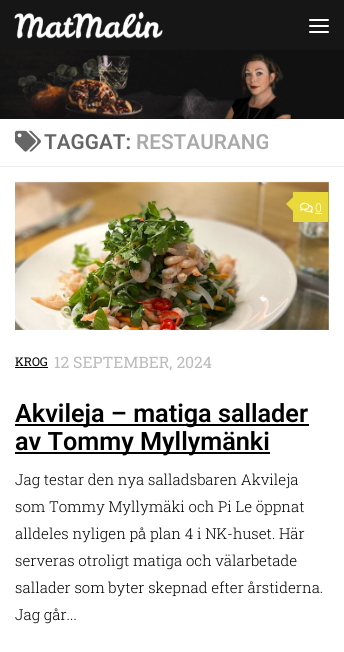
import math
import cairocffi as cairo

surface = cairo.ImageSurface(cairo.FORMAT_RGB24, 344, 652)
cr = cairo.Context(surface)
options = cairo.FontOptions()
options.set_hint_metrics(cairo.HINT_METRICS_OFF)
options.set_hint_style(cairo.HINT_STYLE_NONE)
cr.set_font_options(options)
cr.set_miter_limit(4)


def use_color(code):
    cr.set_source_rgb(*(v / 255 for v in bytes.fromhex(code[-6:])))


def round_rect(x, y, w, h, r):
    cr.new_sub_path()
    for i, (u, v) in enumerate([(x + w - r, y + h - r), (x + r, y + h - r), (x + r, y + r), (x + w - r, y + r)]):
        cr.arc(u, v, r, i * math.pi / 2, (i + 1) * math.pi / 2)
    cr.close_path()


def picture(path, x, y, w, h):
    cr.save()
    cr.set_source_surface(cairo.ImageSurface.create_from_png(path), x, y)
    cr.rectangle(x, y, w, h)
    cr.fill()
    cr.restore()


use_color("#ffffff")
cr.paint()
use_color("#161616")
cr.rectangle(0, 0, 344, 50)
cr.fill()
picture("img1.png", 14, 11, 149, 28)
use_color("#ffffff")
round_rect(309, 19, 20, 2, 1)
cr.fill()
round_rect(309, 25, 20, 2, 1)
cr.fill()
round_rect(309, 31, 20, 2, 1)
cr.fill()
picture("img2.png", 0, 50, 344, 69)
use_color("#eeeeee")
cr.rectangle(0, 166, 344, 1)
cr.fill()
picture("img3.png", 15, 130, 26, 22)
cr.select_font_face("Roboto SemiBold")
cr.set_font_size(20.75)
use_color("#666666")
cr.move_to(44, 149)
cr.show_text("TAGGAT:")
use_color("#aaaaaa")
cr.move_to(136, 149)
cr.show_text("RESTAURANG")
picture("img4.png", 15, 181, 314, 149)
use_color("#ead93a")
cr.rectangle(293, 192, 35, 30)
cr.fill()
use_color("#bbae2e")
cr.rectangle(328, 192, 1, 30)
cr.fill()
use_color("#ead93a")
cr.new_path()
cr.move_to(295, 195)
cr.line_to(295, 213)
cr.line_to(286, 204)
cr.close_path()
cr.fill()
picture("img5.png", 300, 202, 13, 11)
cr.select_font_face("Roboto Slab Light")
cr.set_font_size(12)
use_color("#ffffff")
cr.move_to(315, 212)
cr.show_text("0")
cr.rectangle(315, 213, 7, 1)
cr.fill()
cr.select_font_face("Roboto Slab")
use_color("#000000")
cr.move_to(15, 366)
cr.show_text("KROG")
cr.rectangle(15, 367, 33, 1)
cr.fill()
cr.set_font_size(15.75)
use_color("#bbbbbb")
cr.move_to(54, 368)
cr.show_text("12 SEPTEMBER, 2024")
use_color("#000000")
cr.rectangle(15, 424, 294, 2)
cr.fill()
cr.select_font_face("Roboto SemiBold")
cr.set_font_size(25.25)
cr.move_to(15, 422)
cr.show_text("Akvileja – matiga sallader")
cr.rectangle(15, 452, 255, 2)
cr.fill()
cr.move_to(15, 450)
cr.show_text("av Tommy Myllymänki")
cr.select_font_face("Roboto Slab Light")
cr.set_font_size(15)
cr.move_to(15, 485)
cr.show_text("Jag testar den nya salladsbaren Akvileja")
cr.move_to(15, 512)
cr.show_text("som Tommy Myllymäki och Pi Le öppnat")
cr.move_to(15, 539)
cr.show_text("alldeles nyligen på plan 4 i NK-huset. Här")
cr.move_to(15, 566)
cr.show_text("serveras otroligt matiga och välarbetade")
cr.move_to(15, 593)
cr.show_text("sallader som byter skepnad efter årstiderna.")
cr.move_to(15, 620)
cr.show_text("Jag går...")
surface.write_to_png("result.png")
